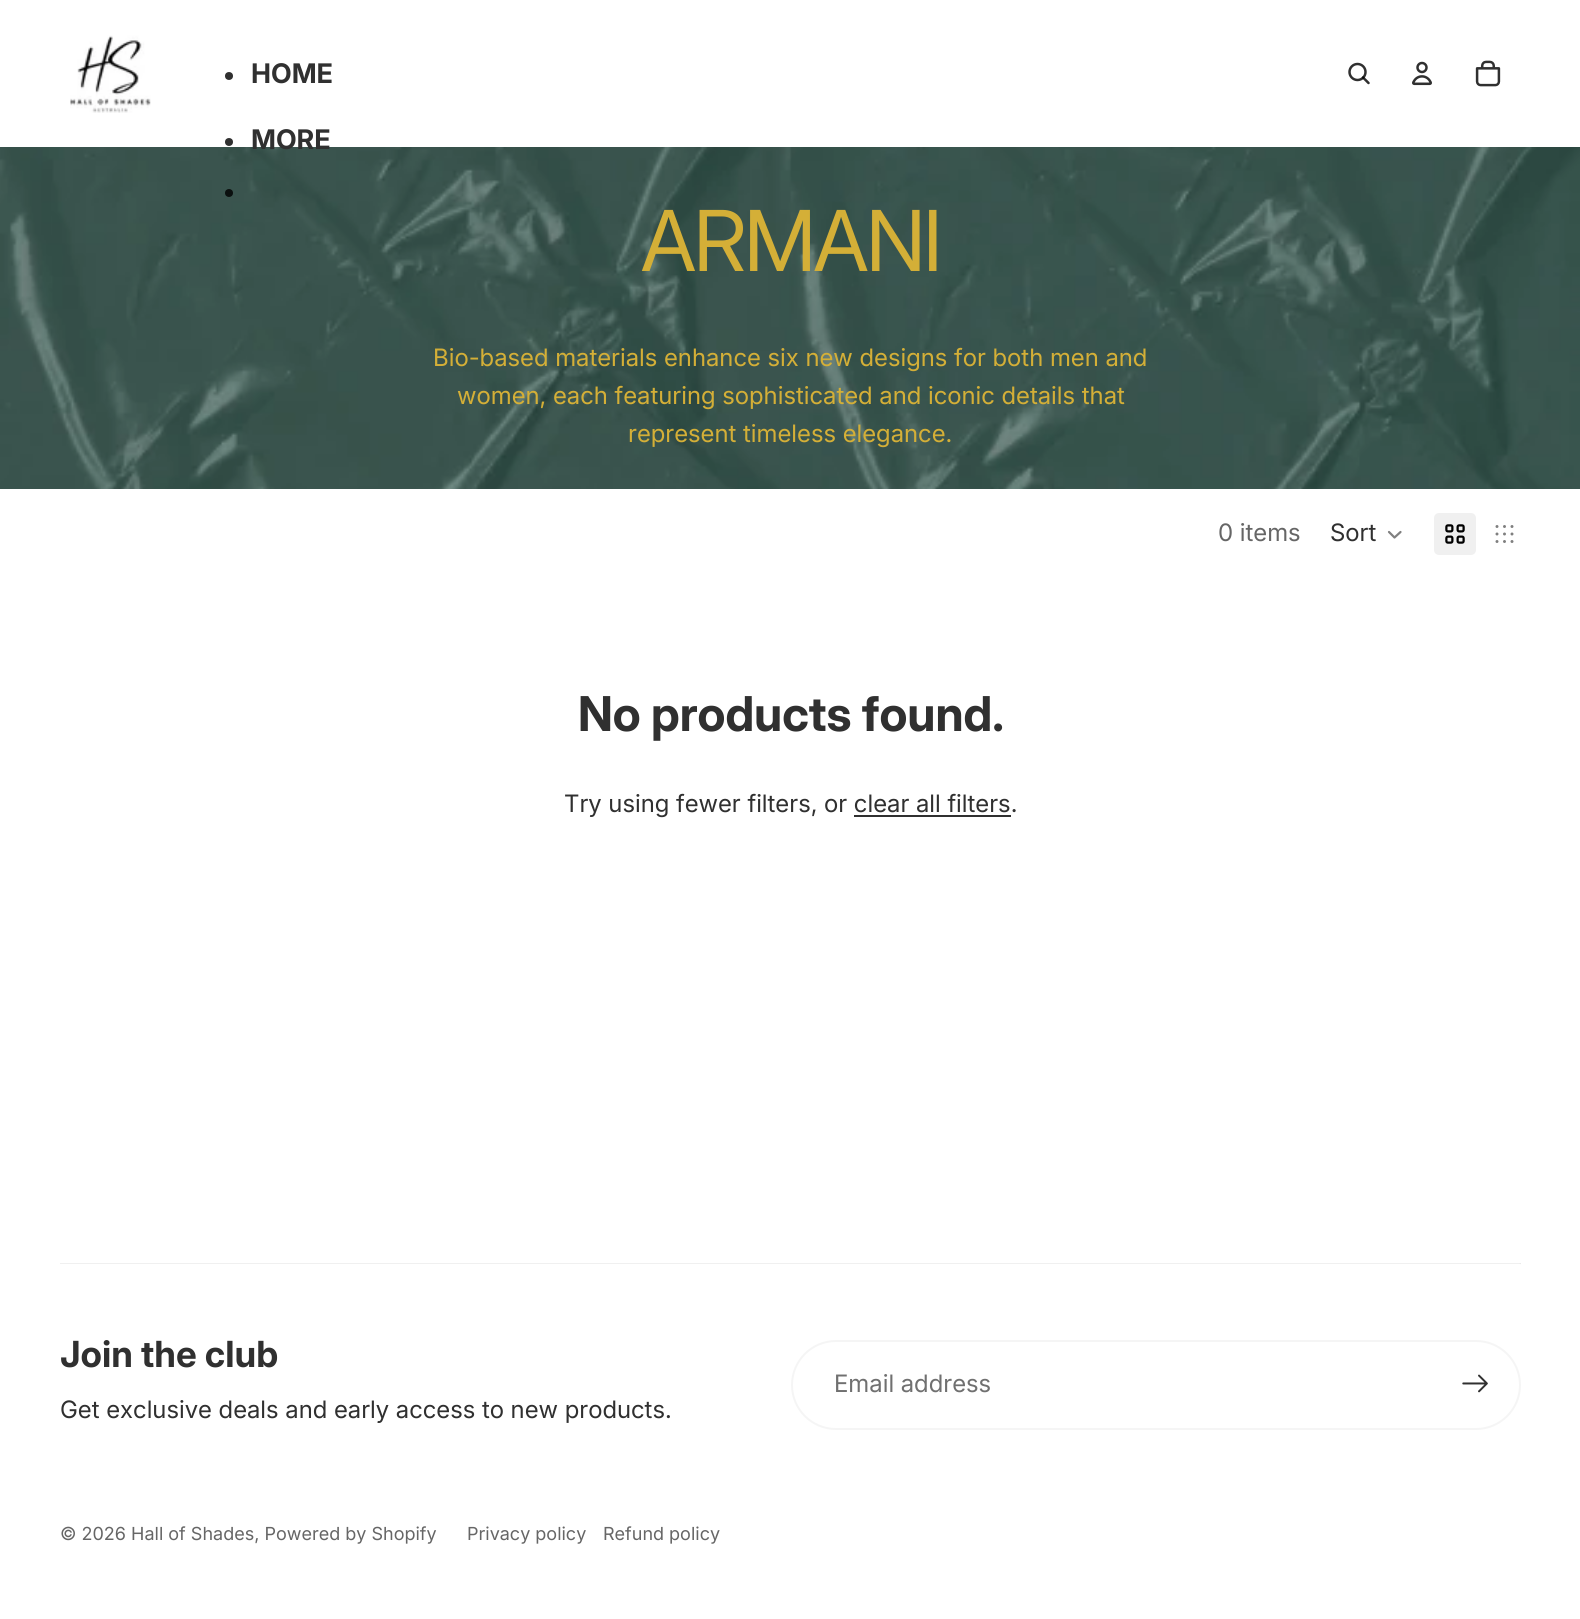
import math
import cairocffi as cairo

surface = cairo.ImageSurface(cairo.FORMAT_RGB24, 1580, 1619)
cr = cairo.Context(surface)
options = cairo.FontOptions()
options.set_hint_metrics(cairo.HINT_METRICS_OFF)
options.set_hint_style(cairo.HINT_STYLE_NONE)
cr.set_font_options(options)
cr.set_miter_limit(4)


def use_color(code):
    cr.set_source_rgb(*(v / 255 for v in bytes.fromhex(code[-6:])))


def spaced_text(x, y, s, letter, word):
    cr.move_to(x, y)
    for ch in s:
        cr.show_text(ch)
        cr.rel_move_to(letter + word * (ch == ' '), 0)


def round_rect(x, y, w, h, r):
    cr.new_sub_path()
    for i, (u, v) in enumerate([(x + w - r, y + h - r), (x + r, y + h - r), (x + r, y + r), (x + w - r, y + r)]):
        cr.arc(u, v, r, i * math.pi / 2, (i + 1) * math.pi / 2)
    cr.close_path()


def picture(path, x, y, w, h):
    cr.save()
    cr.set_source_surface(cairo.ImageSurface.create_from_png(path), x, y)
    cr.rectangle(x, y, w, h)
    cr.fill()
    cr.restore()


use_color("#ffffff")
cr.paint()
picture("img1.png", 70, 35, 81, 78)
use_color("#303030")
cr.arc(229, 76, 4, 0, 2 * math.pi)
cr.fill()
cr.select_font_face("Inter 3", cairo.FONT_SLANT_NORMAL, cairo.FONT_WEIGHT_BOLD)
cr.set_font_size(27)
cr.move_to(251, 83)
cr.show_text("HOME")
cr.new_path()
cr.arc(229, 142, 4, 0, 2 * math.pi)
cr.fill()
picture("img4.png", 0, 147, 1580, 342)
cr.move_to(251, 149)
cr.show_text("MORE")
use_color("#0b100f")
cr.new_path()
cr.arc(229, 193, 4, 0, 2 * math.pi)
cr.fill()
cr.arc(1357.5, 72, 8, 0, 2 * math.pi)
use_color("#303030")
cr.set_line_width(2.5)
cr.stroke()
cr.new_path()
cr.move_to(1363, 77.5)
cr.line_to(1368.5, 83)
cr.set_source_rgba(0, 0, 0, 0.81)
cr.set_line_cap(cairo.LINE_CAP_ROUND)
cr.set_line_join(cairo.LINE_JOIN_ROUND)
cr.stroke()
picture("img2.png", 1412, 61, 20, 25)
picture("img3.png", 1475, 60, 26, 27)
cr.select_font_face("Inter 3")
cr.set_font_size(84)
use_color("#d4af37")
spaced_text(641, 271, "ARMANI", -2.5, 0)
cr.select_font_face("Inter")
cr.set_font_size(24)
cr.move_to(433, 366)
cr.show_text("Bio-based materials enhance six new designs for both men and")
cr.move_to(457, 404)
cr.show_text("women, each featuring sophisticated and iconic details that")
cr.move_to(628, 442)
cr.show_text("represent timeless elegance.")
use_color("#666666")
cr.move_to(1218, 541)
cr.show_text("0 items")
use_color("#303030")
cr.move_to(1330, 541)
cr.show_text("Sort")
cr.new_path()
cr.move_to(1400.5, 532)
cr.line_to(1394.5, 537.5)
cr.line_to(1389, 532)
use_color("#808080")
cr.set_line_width(2.2)
cr.stroke()
use_color("#f0f0f0")
round_rect(1434, 513, 42, 42, 5)
cr.fill()
picture("img5.png", 1445, 524, 20, 20)
picture("img6.png", 1495, 525, 19, 18)
cr.select_font_face("Inter", cairo.FONT_SLANT_NORMAL, cairo.FONT_WEIGHT_BOLD)
cr.set_font_size(48)
use_color("#303030")
cr.move_to(578, 731)
cr.show_text("No products found.")
cr.select_font_face("Inter")
cr.set_font_size(24)
cr.move_to(564, 812)
cr.show_text("Try using fewer filters, or clear all filters.")
cr.rectangle(854, 815, 157, 2)
cr.fill()
use_color("#f0f0f0")
cr.new_path()
cr.move_to(1521, 1263)
cr.line_to(1521, 1264.5)
cr.line_to(1519.5, 1263)
cr.close_path()
cr.fill()
cr.set_source_rgba(0, 0, 0, 0.06)
cr.new_path()
cr.move_to(1521, 1264)
cr.line_to(60, 1264)
cr.line_to(60, 1263)
cr.line_to(1520, 1263)
cr.close_path()
cr.fill()
cr.select_font_face("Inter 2", cairo.FONT_SLANT_NORMAL, cairo.FONT_WEIGHT_BOLD)
cr.set_font_size(36)
use_color("#303030")
cr.move_to(60, 1367)
cr.show_text("Join the club")
cr.select_font_face("Inter")
cr.set_font_size(24)
cr.move_to(60, 1418)
cr.show_text("Get exclusive deals and early access to new products.")
round_rect(792, 1341, 728, 88, 44)
use_color("#f5f5f5")
cr.set_line_width(2)
cr.set_line_cap(cairo.LINE_CAP_BUTT)
cr.set_line_join(cairo.LINE_JOIN_MITER)
cr.stroke()
use_color("#707070")
cr.move_to(834, 1392)
cr.show_text("Email address")
picture("img7.png", 1462, 1374, 26, 19)
cr.select_font_face("Inter 2")
cr.set_font_size(18)
use_color("#666666")
cr.move_to(60, 1540)
cr.show_text("© 2026 Hall of Shades, Powered by Shopify")
cr.move_to(467, 1540)
cr.show_text("Privacy policy")
cr.move_to(603, 1540)
cr.show_text("Refund policy")
surface.write_to_png("result.png")
